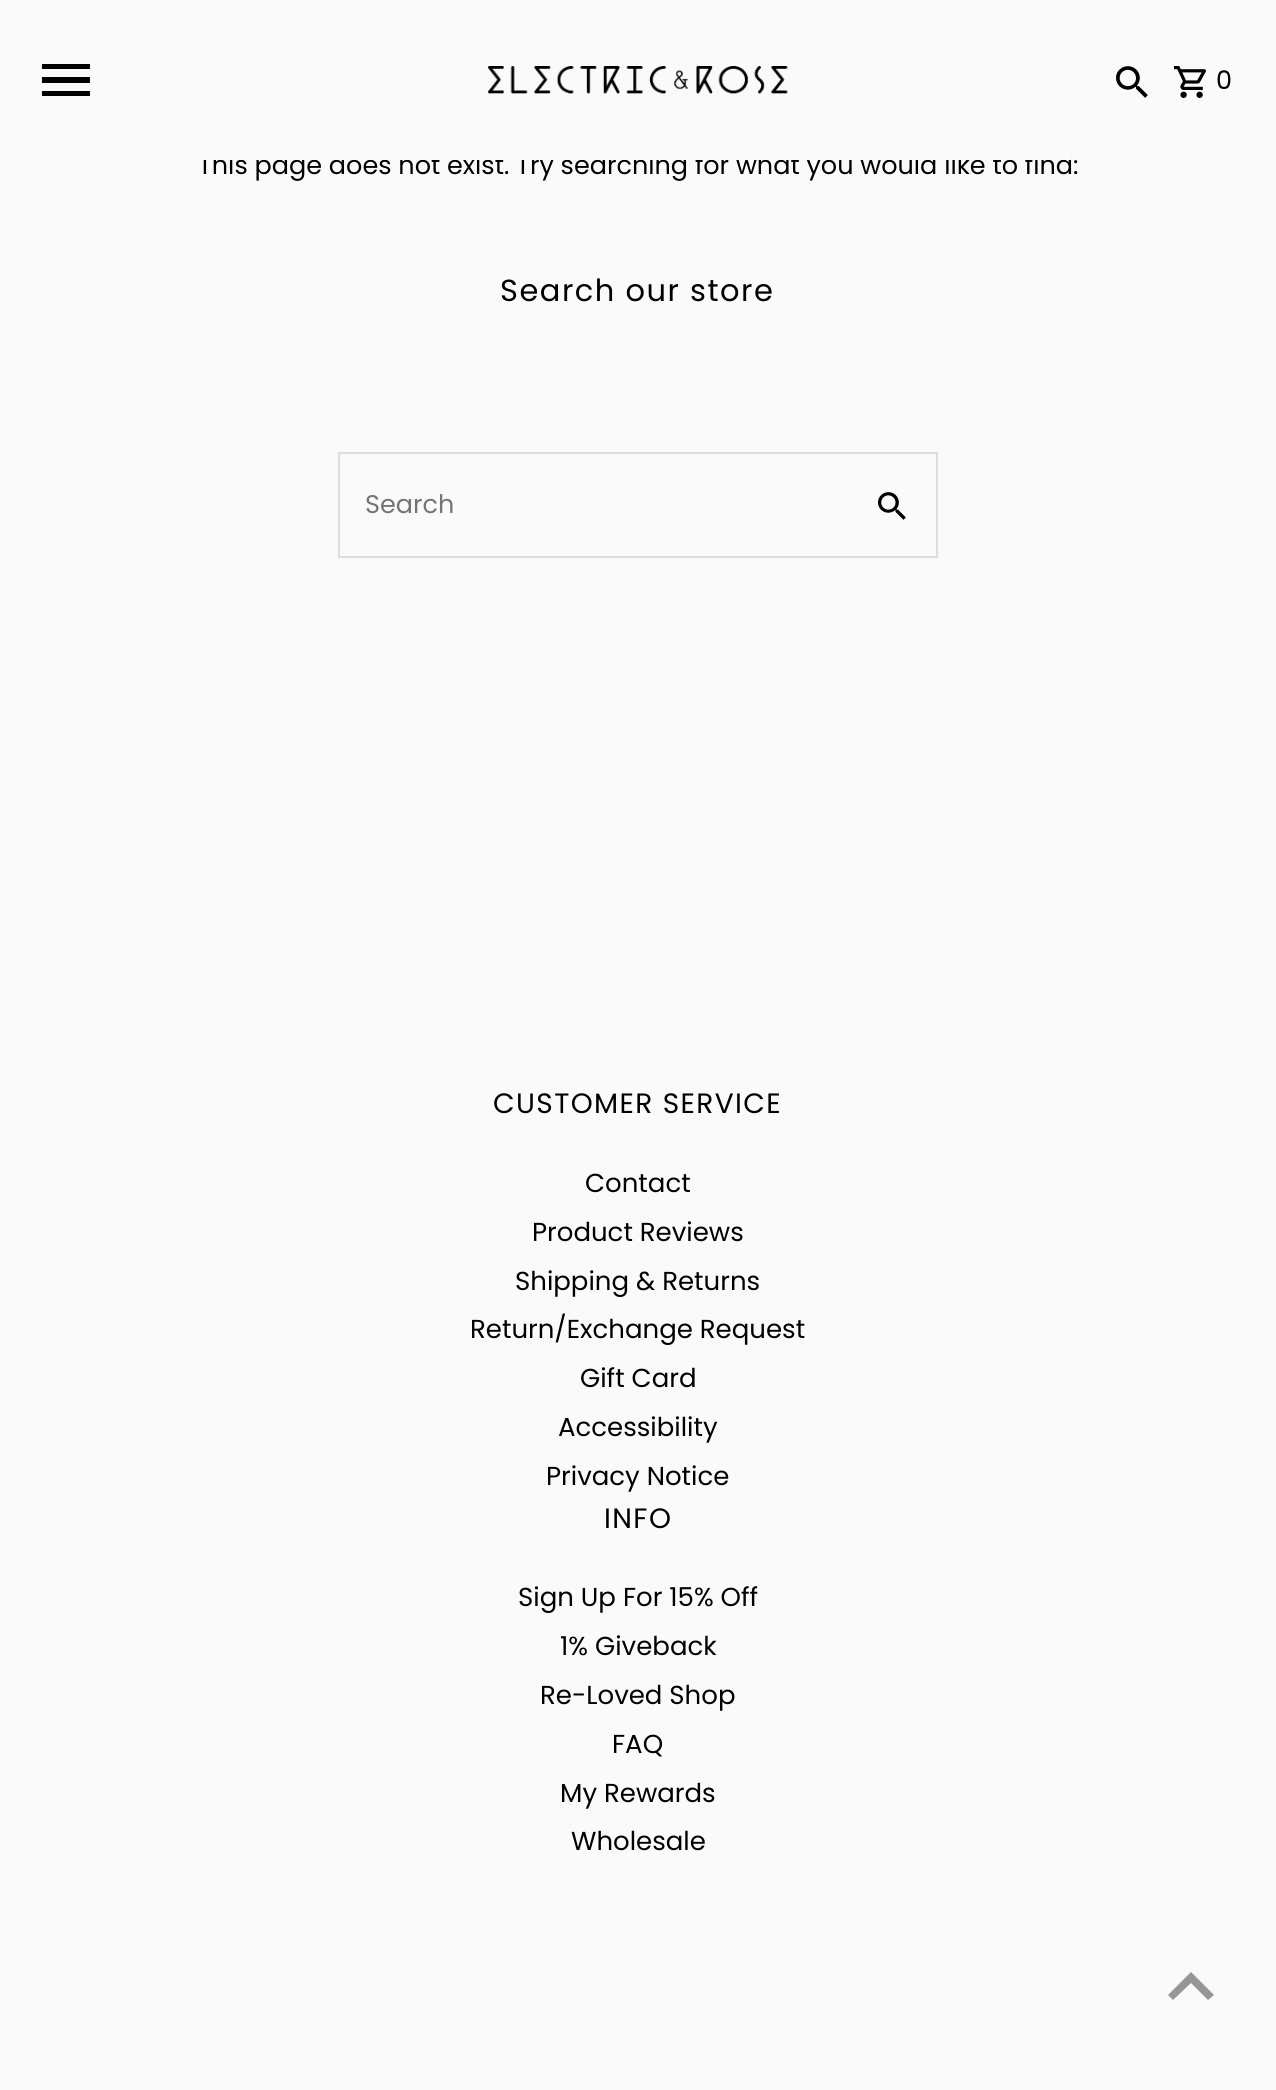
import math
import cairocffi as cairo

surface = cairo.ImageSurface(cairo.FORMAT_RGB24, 1276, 2090)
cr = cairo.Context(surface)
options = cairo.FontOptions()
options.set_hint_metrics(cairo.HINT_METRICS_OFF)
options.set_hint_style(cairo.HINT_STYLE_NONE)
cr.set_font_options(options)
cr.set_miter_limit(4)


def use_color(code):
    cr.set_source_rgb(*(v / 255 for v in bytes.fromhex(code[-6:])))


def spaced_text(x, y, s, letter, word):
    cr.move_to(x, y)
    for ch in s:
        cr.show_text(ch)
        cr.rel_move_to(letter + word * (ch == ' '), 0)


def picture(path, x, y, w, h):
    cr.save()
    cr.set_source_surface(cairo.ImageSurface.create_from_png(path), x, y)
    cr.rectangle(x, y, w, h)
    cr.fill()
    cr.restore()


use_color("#fafafa")
cr.paint()
cr.select_font_face("Poppins")
cr.set_font_size(25.5)
use_color("#000000")
cr.move_to(198, 174)
cr.show_text("This page does not exist. Try searching for what you would like to find:")
use_color("#fafafa")
cr.rectangle(198, 154, 873, 6)
cr.fill()
use_color("#000000")
cr.rectangle(42, 91, 48, 5)
cr.fill()
cr.rectangle(42, 77, 48, 6)
cr.fill()
cr.rectangle(42, 64, 48, 5)
cr.fill()
picture("img1.png", 488, 66, 300, 28)
picture("img2.png", 1116, 66, 32, 32)
picture("img3.png", 1174, 66, 32, 32)
spaced_text(1216, 89, "0", 2, 0)
cr.set_font_size(30.5)
spaced_text(500, 301, "Search our store", 1.5, 0)
cr.rectangle(339, 453, 598, 104)
use_color("#dddddd")
cr.stroke()
cr.set_font_size(25.5)
use_color("#757575")
cr.move_to(365, 513)
cr.show_text("Search")
picture("img4.png", 878, 492, 28, 28)
cr.set_font_size(28)
use_color("#000000")
spaced_text(493, 1113, "CUSTOMER SERVICE", 1.4, 0)
cr.set_font_size(26)
cr.move_to(585, 1192)
cr.show_text("Contact")
cr.move_to(532, 1241)
cr.show_text("Product Reviews")
cr.move_to(515, 1290)
cr.show_text("Shipping & Returns")
cr.move_to(470, 1338)
cr.show_text("Return/Exchange Request")
cr.move_to(580, 1387)
cr.show_text("Gift Card")
cr.move_to(558, 1436)
cr.show_text("Accessibility")
cr.move_to(546, 1485)
cr.show_text("Privacy Notice")
cr.set_font_size(28)
spaced_text(604, 1528, "INFO", 1.4, 0)
cr.set_font_size(26)
cr.move_to(518, 1606)
cr.show_text("Sign Up For 15% Off")
cr.move_to(560, 1655)
cr.show_text("1% Giveback")
cr.move_to(540, 1704)
cr.show_text("Re-Loved Shop")
cr.move_to(612, 1753)
cr.show_text("FAQ")
cr.move_to(560, 1802)
cr.show_text("My Rewards")
cr.move_to(571, 1850)
cr.show_text("Wholesale")
use_color("#969696")
cr.new_path()
cr.move_to(1191, 1972)
cr.line_to(1168, 1995)
cr.line_to(1173, 2000)
cr.line_to(1191, 1983)
cr.line_to(1208, 2000)
cr.line_to(1214, 1995)
cr.close_path()
cr.fill()
surface.write_to_png("result.png")
